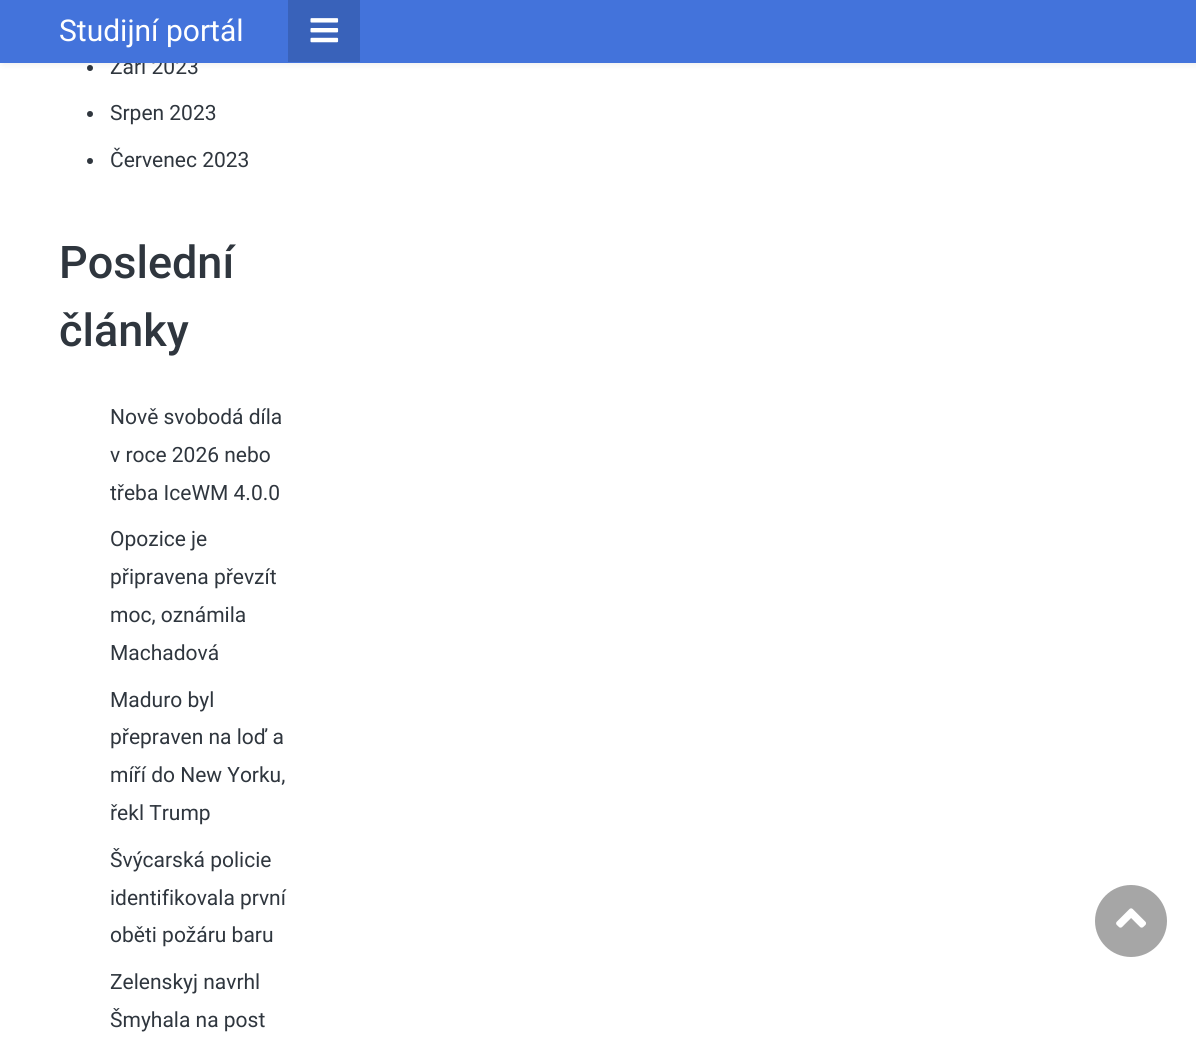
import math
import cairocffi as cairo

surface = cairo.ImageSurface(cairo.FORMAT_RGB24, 1196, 1047)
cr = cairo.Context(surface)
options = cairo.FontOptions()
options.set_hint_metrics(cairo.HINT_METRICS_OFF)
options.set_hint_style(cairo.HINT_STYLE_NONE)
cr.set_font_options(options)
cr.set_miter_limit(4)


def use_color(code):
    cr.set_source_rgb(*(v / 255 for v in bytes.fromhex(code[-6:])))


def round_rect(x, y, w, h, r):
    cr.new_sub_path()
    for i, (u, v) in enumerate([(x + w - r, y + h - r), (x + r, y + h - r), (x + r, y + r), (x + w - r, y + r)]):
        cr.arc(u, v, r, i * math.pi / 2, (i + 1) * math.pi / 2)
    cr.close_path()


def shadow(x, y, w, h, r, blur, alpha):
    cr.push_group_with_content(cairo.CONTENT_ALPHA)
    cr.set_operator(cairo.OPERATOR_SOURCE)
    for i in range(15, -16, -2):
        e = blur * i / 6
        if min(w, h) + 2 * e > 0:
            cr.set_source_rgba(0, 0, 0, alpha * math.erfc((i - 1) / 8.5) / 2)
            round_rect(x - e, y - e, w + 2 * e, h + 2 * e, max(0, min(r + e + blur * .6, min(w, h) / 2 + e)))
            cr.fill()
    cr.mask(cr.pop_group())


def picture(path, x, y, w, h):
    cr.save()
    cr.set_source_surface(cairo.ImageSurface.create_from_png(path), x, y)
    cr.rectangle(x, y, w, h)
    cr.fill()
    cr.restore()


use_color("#ffffff")
cr.paint()
use_color("#2f363e")
cr.arc(90, 68, 3, 0, 2 * math.pi)
cr.fill()
use_color("#000000")
shadow(3, 0, 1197, 63, 0, 4, 0.1)
cr.select_font_face("Roboto")
cr.set_font_size(21)
use_color("#2f363e")
cr.move_to(110, 74)
cr.show_text("Září 2023")
use_color("#4373db")
cr.rectangle(0, 0, 1196, 63)
cr.fill()
cr.set_font_size(30)
use_color("#ffffff")
cr.move_to(59, 41)
cr.show_text("Studijní portál")
use_color("#3962ba")
cr.rectangle(288, 0, 72, 62)
cr.fill()
picture("img1.png", 310, 18, 29, 25)
use_color("#2f363e")
cr.arc(90, 114, 3, 0, 2 * math.pi)
cr.fill()
cr.set_font_size(21)
cr.move_to(110, 120)
cr.show_text("Srpen 2023")
cr.new_path()
cr.arc(90, 161, 3, 0, 2 * math.pi)
cr.fill()
cr.move_to(110, 167)
cr.show_text("Červenec 2023")
cr.select_font_face("Roboto Medium")
cr.set_font_size(45)
cr.move_to(59, 278)
cr.show_text("Poslední")
cr.move_to(59, 346)
cr.show_text("články")
cr.select_font_face("Roboto")
cr.set_font_size(21)
cr.move_to(110, 424)
cr.show_text("Nově svobodá díla")
cr.move_to(110, 462)
cr.show_text("v roce 2026 nebo")
cr.move_to(110, 500)
cr.show_text("třeba IceWM 4.0.0")
cr.move_to(110, 546)
cr.show_text("Opozice je")
cr.move_to(110, 584)
cr.show_text("připravena převzít")
cr.move_to(110, 622)
cr.show_text("moc, oznámila")
cr.move_to(110, 660)
cr.show_text("Machadová")
cr.move_to(110, 707)
cr.show_text("Maduro byl")
cr.move_to(110, 744)
cr.show_text("přepraven na loď a")
cr.move_to(110, 782)
cr.show_text("míří do New Yorku,")
cr.move_to(110, 820)
cr.show_text("řekl Trump")
cr.move_to(110, 867)
cr.show_text("Švýcarská policie")
cr.move_to(110, 905)
cr.show_text("identifikovala první")
cr.move_to(110, 942)
cr.show_text("oběti požáru baru")
cr.move_to(110, 989)
cr.show_text("Zelenskyj navrhl")
cr.move_to(110, 1027)
cr.show_text("Šmyhala na post")
use_color("#a6a6a6")
cr.new_path()
cr.arc(1131, 921, 36, 0, 2 * math.pi)
cr.fill()
picture("img2.png", 1116, 908, 30, 20)
surface.write_to_png("result.png")
